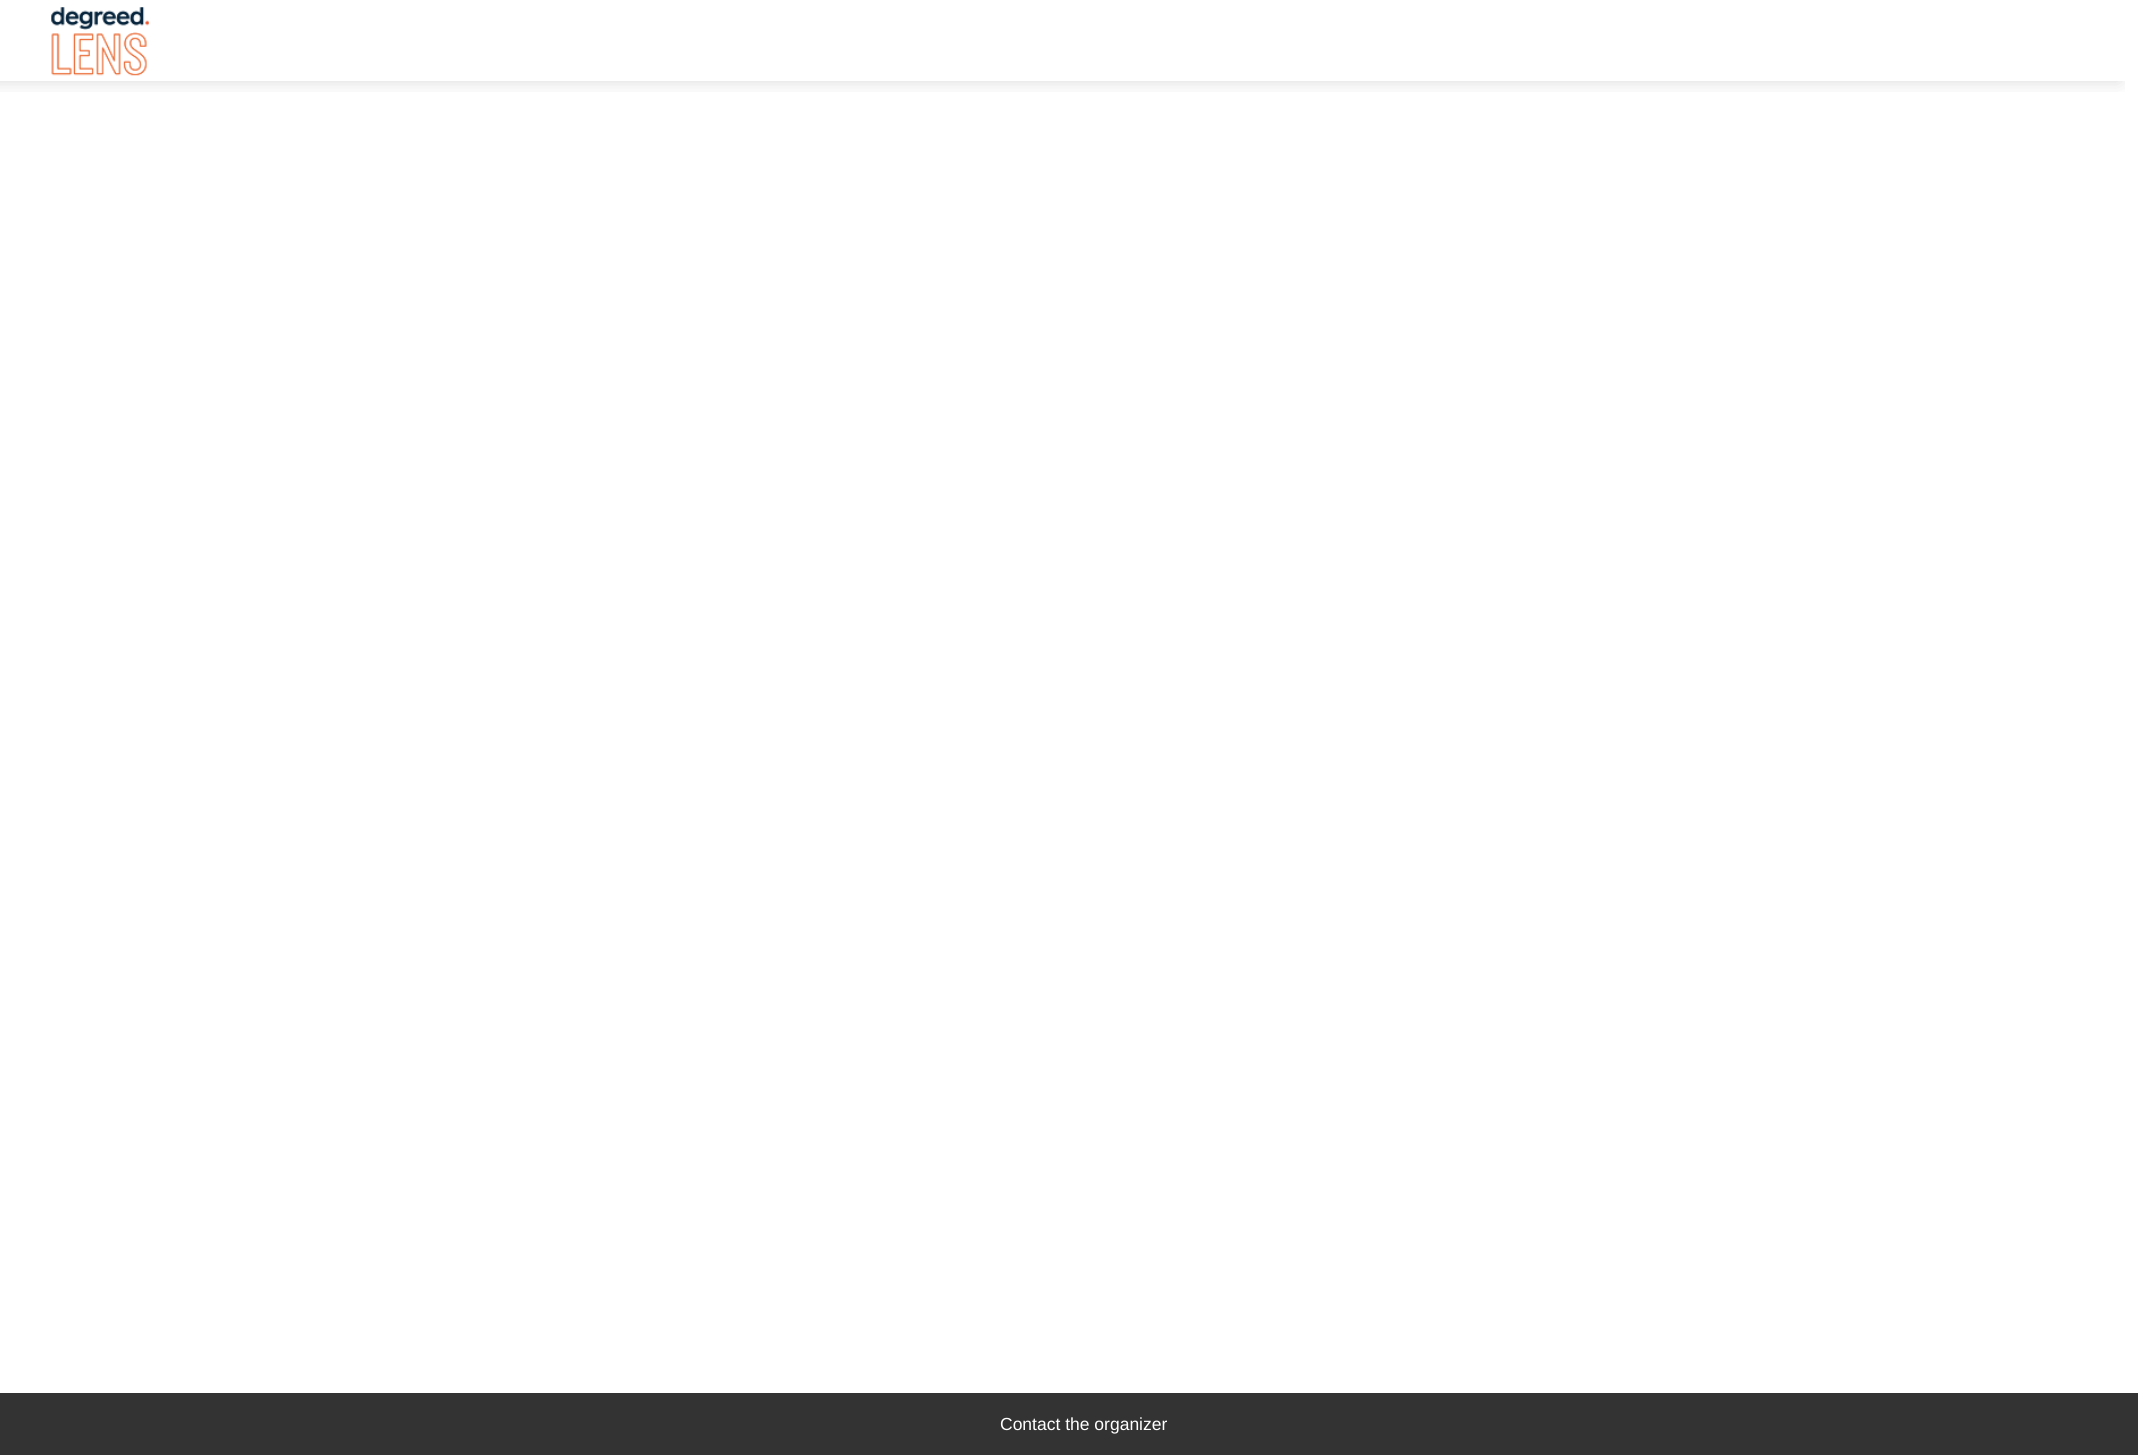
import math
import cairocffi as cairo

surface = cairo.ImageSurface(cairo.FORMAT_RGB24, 2138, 1455)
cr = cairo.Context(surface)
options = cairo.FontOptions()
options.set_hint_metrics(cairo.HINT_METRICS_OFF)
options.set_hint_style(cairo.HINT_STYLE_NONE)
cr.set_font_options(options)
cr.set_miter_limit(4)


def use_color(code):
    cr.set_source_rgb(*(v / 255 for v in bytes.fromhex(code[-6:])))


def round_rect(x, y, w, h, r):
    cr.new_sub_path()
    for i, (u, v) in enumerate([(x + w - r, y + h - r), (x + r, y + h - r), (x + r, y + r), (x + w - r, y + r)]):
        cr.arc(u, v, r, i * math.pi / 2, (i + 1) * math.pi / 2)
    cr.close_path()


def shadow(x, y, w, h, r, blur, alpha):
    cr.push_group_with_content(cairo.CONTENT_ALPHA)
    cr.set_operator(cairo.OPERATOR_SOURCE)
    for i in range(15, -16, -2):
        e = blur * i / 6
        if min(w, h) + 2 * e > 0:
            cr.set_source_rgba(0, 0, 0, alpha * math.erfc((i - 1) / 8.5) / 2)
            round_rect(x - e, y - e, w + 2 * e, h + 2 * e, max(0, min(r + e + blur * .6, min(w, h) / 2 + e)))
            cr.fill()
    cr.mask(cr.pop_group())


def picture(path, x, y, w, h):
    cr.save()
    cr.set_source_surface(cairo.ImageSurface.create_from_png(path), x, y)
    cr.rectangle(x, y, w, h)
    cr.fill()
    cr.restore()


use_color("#ffffff")
cr.paint()
cr.save()
cr.rectangle(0, 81, 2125, 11)
cr.clip()
use_color("#000000")
shadow(-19, 0, 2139, 81, 0, 9.5, 0.15)
cr.restore()
picture("img1.png", 51, 7, 98, 69)
use_color("#333333")
cr.rectangle(0, 1393, 2138, 62)
cr.fill()
cr.select_font_face("Liberation Sans")
cr.set_font_size(17.5)
use_color("#ffffff")
cr.move_to(1000, 1430)
cr.show_text("Contact the organizer")
surface.write_to_png("result.png")
